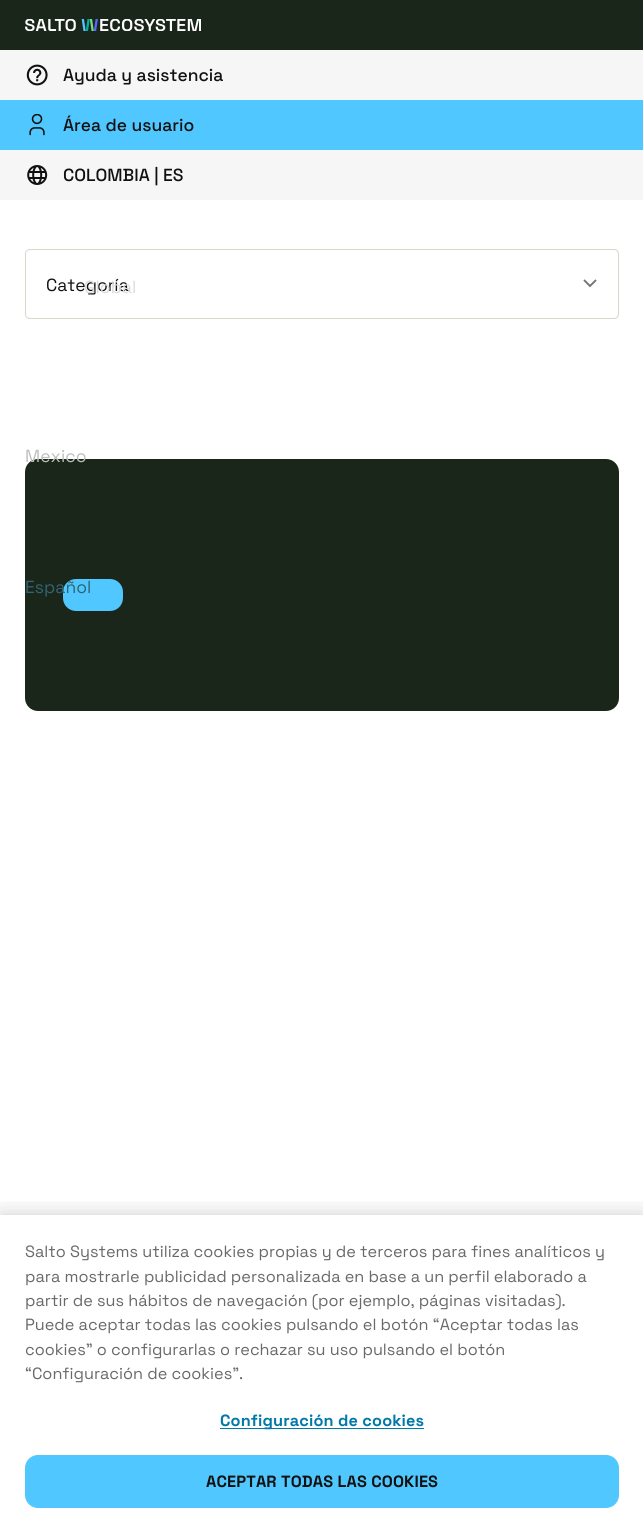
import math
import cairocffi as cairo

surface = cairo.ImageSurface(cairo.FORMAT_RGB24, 643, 1532)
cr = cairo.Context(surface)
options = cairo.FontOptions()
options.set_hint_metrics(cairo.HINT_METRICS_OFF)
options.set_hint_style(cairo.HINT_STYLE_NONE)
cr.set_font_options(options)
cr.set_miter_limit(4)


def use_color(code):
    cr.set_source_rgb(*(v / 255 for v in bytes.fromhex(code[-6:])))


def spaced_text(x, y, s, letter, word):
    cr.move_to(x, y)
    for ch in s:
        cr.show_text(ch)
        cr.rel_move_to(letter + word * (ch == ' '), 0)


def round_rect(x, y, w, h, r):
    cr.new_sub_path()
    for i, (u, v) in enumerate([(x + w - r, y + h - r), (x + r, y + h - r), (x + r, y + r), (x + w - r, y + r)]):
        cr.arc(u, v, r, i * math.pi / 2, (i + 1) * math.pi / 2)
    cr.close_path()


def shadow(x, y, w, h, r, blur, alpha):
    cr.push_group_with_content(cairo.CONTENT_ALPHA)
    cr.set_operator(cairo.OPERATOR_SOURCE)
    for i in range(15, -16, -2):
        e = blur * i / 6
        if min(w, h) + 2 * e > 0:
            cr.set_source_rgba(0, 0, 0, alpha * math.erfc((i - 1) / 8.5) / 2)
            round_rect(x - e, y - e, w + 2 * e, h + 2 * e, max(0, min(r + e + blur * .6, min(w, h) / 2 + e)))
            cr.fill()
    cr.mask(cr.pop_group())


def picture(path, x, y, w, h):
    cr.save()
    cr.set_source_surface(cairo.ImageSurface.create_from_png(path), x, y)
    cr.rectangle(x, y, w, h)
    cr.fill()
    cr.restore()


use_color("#ffffff")
cr.paint()
use_color("#1b261b")
cr.rectangle(0, 0, 643, 50)
cr.fill()
picture("img1.png", 25, 19, 176, 12)
use_color("#f6f6f6")
cr.rectangle(0, 50, 643, 50)
cr.fill()
picture("img2.png", 26, 64, 22, 22)
cr.select_font_face("Space Grotesk Medium")
cr.set_font_size(17.5)
use_color("#111111")
cr.move_to(63, 81)
cr.show_text("Ayuda y asistencia")
use_color("#50c8ff")
cr.rectangle(0, 100, 643, 50)
cr.fill()
picture("img3.png", 29, 114, 16, 22)
use_color("#111111")
cr.move_to(63, 131)
cr.show_text("Área de usuario")
use_color("#f6f6f6")
cr.rectangle(0, 150, 643, 50)
cr.fill()
picture("img4.png", 27, 165, 21, 20)
use_color("#111111")
cr.move_to(63, 181)
cr.show_text("COLOMBIA | ES")
round_rect(25.5, 249.5, 593, 69, 4.5)
use_color("#dbd5c9")
cr.set_line_width(1)
cr.stroke()
cr.select_font_face("Space Grotesk")
use_color("#111111")
cr.move_to(46, 291)
cr.show_text("Categoría")
use_color("#dcdcdc")
cr.move_to(84, 293)
cr.show_text("Global")
use_color("#1b261b")
round_rect(25, 459, 594, 252, 13)
cr.fill()
use_color("#bbbebb")
cr.move_to(25, 462)
cr.show_text("Mexico")
use_color("#50c8ff")
round_rect(63, 579, 60, 32, 13)
cr.fill()
use_color("#2f6472")
cr.move_to(25, 593)
cr.show_text("Español")
cr.new_path()
cr.move_to(596, 280)
cr.line_to(590, 286)
cr.line_to(584, 280)
use_color("#77746d")
cr.set_line_width(1.9)
cr.stroke()
cr.save()
cr.rectangle(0, 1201, 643, 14)
cr.clip()
use_color("#000000")
shadow(0, 1215, 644, 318, 0, 11, 0.2)
cr.restore()
cr.set_font_size(16.25)
use_color("#696969")
cr.move_to(25, 1257)
cr.show_text("Salto Systems utiliza cookies propias y de terceros para fines analíticos y")
cr.move_to(25, 1282)
cr.show_text("para mostrarle publicidad personalizada en base a un perfil elaborado a")
cr.move_to(25, 1306)
cr.show_text("partir de sus hábitos de navegación (por ejemplo, páginas visitadas).")
cr.move_to(25, 1330)
cr.show_text("Puede aceptar todas las cookies pulsando el botón “Aceptar todas las")
cr.move_to(25, 1355)
cr.show_text("cookies” o configurarlas o rechazar su uso pulsando el botón")
cr.move_to(25, 1379)
cr.show_text("“Configuración de cookies”.")
use_color("#0078a8")
cr.rectangle(220, 1428, 204, 1)
cr.fill()
cr.select_font_face("Space Grotesk", cairo.FONT_SLANT_NORMAL, cairo.FONT_WEIGHT_BOLD)
spaced_text(220, 1426, "Configuración de cookies", 0.15, 0)
use_color("#50c8ff")
round_rect(25.5, 1455.5, 593, 52, 12.5)
cr.fill_preserve()
cr.set_line_width(1)
cr.stroke()
use_color("#111111")
spaced_text(206, 1487, "ACEPTAR TODAS LAS COOKIES", 0.15, 0)
surface.write_to_png("result.png")
